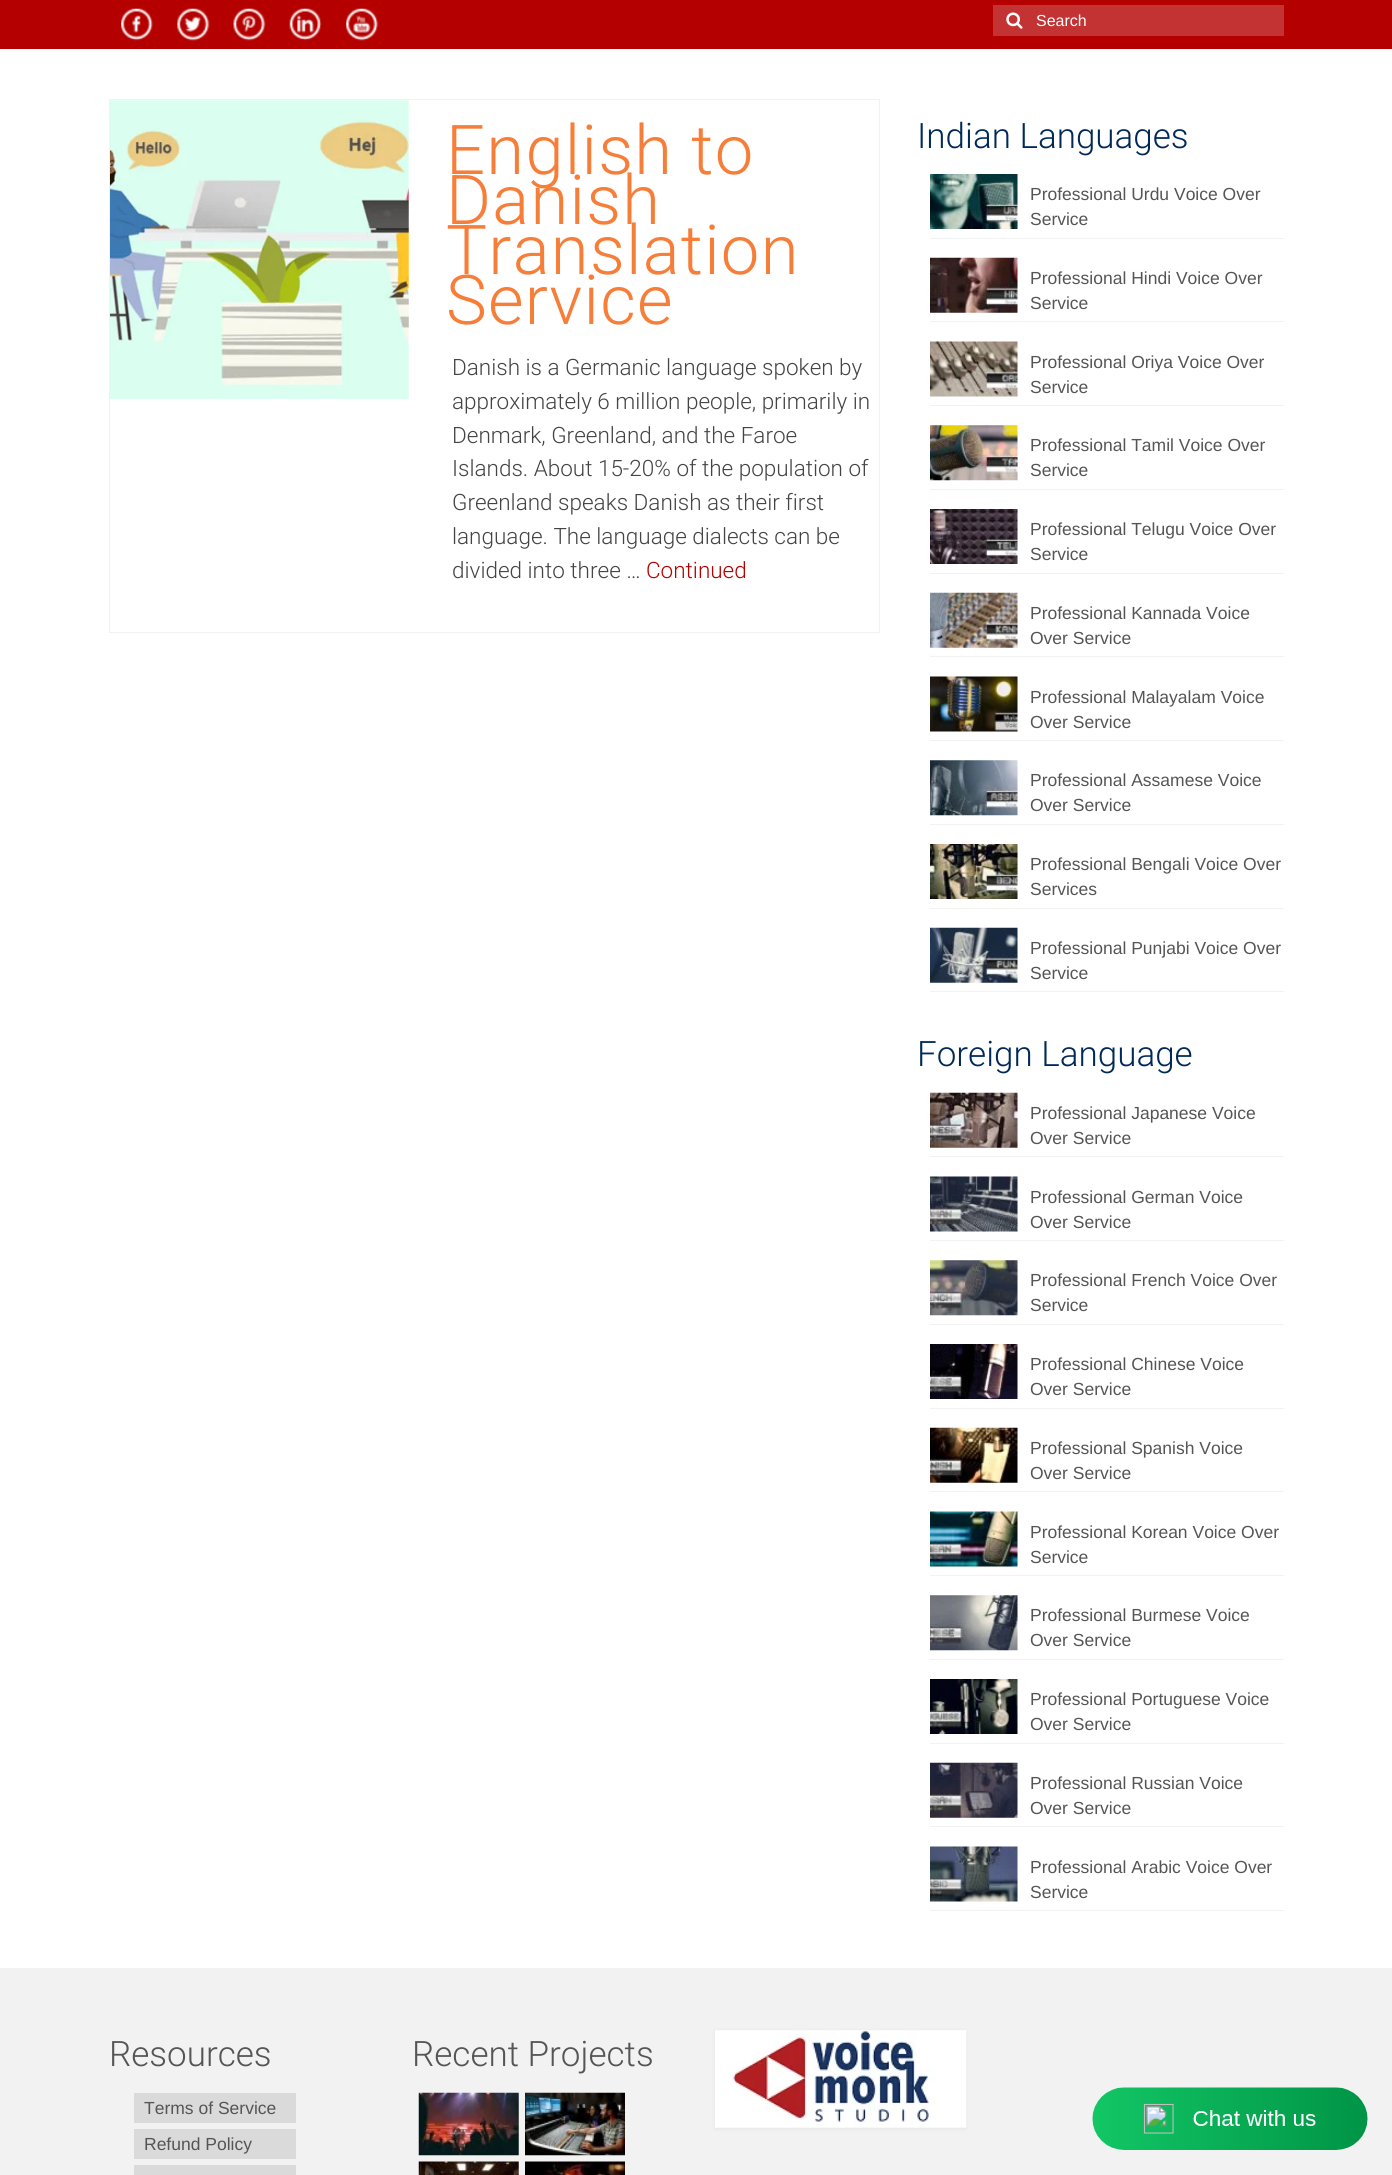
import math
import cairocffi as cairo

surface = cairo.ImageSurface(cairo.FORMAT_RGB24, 1392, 2175)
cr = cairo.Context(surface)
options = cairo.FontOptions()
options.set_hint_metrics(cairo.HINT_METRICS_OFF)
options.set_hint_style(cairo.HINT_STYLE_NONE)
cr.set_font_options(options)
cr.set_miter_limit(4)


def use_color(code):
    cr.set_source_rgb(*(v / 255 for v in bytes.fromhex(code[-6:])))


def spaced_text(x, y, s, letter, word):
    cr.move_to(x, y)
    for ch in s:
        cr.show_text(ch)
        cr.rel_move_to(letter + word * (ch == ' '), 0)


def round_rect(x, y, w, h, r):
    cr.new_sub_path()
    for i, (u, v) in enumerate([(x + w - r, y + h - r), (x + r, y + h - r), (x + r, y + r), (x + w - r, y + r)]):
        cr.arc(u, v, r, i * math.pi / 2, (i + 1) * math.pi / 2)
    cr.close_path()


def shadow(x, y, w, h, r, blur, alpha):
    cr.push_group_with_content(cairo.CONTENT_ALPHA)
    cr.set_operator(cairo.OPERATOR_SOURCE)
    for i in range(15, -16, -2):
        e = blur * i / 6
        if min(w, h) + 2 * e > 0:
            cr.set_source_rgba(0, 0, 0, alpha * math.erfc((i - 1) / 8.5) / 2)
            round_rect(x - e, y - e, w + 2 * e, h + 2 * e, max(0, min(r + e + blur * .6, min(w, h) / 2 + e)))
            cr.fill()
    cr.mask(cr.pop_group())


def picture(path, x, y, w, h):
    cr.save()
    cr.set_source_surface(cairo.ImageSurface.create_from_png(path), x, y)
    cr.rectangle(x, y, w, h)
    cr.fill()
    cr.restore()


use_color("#ffffff")
cr.paint()
use_color("#b50000")
cr.rectangle(0, 0, 1392, 49)
cr.fill()
picture("img1.png", 121, 8, 32, 33)
picture("img2.png", 177, 8, 33, 33)
picture("img3.png", 233, 8, 33, 33)
picture("img4.png", 289, 8, 33, 33)
picture("img5.png", 346, 8, 33, 33)
use_color("#c43333")
cr.rectangle(993, 5, 291, 31)
cr.fill()
picture("img6.png", 1006, 12, 17, 17)
cr.select_font_face("Liberation Sans")
cr.set_font_size(16)
use_color("#ffffff")
cr.move_to(1036, 26)
cr.show_text("Search")
cr.rectangle(109.5, 99.5, 770, 533)
use_color("#f2f2f2")
cr.set_line_width(1)
cr.stroke()
picture("img7.png", 110, 100, 299, 299)
cr.select_font_face("Roboto Light")
cr.set_font_size(68.75)
use_color("#f77e38")
spaced_text(446, 174, "English to", 1.25, 0)
spaced_text(446, 224, "Danish", 1.25, 0)
spaced_text(446, 274, "Translation", 1.25, 0)
spaced_text(446, 324, "Service", 1.25, 0)
cr.set_font_size(22.5)
use_color("#444444")
cr.move_to(452, 375)
cr.show_text("Danish is a Germanic language spoken by")
cr.move_to(452, 409)
cr.show_text("approximately 6 million people, primarily in")
cr.move_to(452, 443)
cr.show_text("Denmark, Greenland, and the Faroe")
cr.move_to(452, 476)
cr.show_text("Islands. About 15-20% of the population of")
cr.move_to(452, 510)
cr.show_text("Greenland speaks Danish as their first")
cr.move_to(452, 544)
cr.show_text("language. The language dialects can be")
cr.move_to(452, 578)
cr.show_text("divided into three …")
use_color("#b50000")
cr.move_to(646, 578)
cr.show_text("Continued")
cr.set_font_size(35)
use_color("#002959")
cr.move_to(917, 148)
cr.show_text("Indian Languages")
use_color("#f2f2f2")
cr.rectangle(930, 238, 354, 1)
cr.fill()
picture("img8.png", 930, 174, 88, 55)
cr.select_font_face("Liberation Sans")
cr.set_font_size(17.5)
use_color("#555555")
cr.move_to(1030, 200)
cr.show_text("Professional Urdu Voice Over")
cr.move_to(1030, 225)
cr.show_text("Service")
use_color("#f2f2f2")
cr.rectangle(930, 321, 354, 1)
cr.fill()
picture("img9.png", 930, 257, 88, 56)
use_color("#555555")
cr.move_to(1030, 284)
cr.show_text("Professional Hindi Voice Over")
cr.move_to(1030, 309)
cr.show_text("Service")
use_color("#f2f2f2")
cr.rectangle(930, 405, 354, 1)
cr.fill()
picture("img10.png", 930, 341, 88, 56)
use_color("#555555")
cr.move_to(1030, 368)
cr.show_text("Professional Oriya Voice Over")
cr.move_to(1030, 393)
cr.show_text("Service")
use_color("#f2f2f2")
cr.rectangle(930, 489, 354, 1)
cr.fill()
picture("img11.png", 930, 425, 88, 56)
use_color("#555555")
cr.move_to(1030, 451)
cr.show_text("Professional Tamil Voice Over")
cr.move_to(1030, 476)
cr.show_text("Service")
use_color("#f2f2f2")
cr.rectangle(930, 573, 354, 1)
cr.fill()
picture("img12.png", 930, 509, 88, 55)
use_color("#555555")
cr.move_to(1030, 535)
cr.show_text("Professional Telugu Voice Over")
cr.move_to(1030, 560)
cr.show_text("Service")
use_color("#f2f2f2")
cr.rectangle(930, 656, 354, 1)
cr.fill()
picture("img13.png", 930, 592, 88, 56)
use_color("#555555")
cr.move_to(1030, 619)
cr.show_text("Professional Kannada Voice")
cr.move_to(1030, 644)
cr.show_text("Over Service")
use_color("#f2f2f2")
cr.rectangle(930, 740, 354, 1)
cr.fill()
picture("img14.png", 930, 676, 88, 56)
use_color("#555555")
cr.move_to(1030, 703)
cr.show_text("Professional Malayalam Voice")
cr.move_to(1030, 728)
cr.show_text("Over Service")
use_color("#f2f2f2")
cr.rectangle(930, 824, 354, 1)
cr.fill()
picture("img15.png", 930, 760, 88, 56)
use_color("#555555")
cr.move_to(1030, 786)
cr.show_text("Professional Assamese Voice")
cr.move_to(1030, 811)
cr.show_text("Over Service")
use_color("#f2f2f2")
cr.rectangle(930, 908, 354, 1)
cr.fill()
picture("img16.png", 930, 844, 88, 55)
use_color("#555555")
cr.move_to(1030, 870)
cr.show_text("Professional Bengali Voice Over")
cr.move_to(1030, 895)
cr.show_text("Services")
use_color("#f2f2f2")
cr.rectangle(930, 991, 354, 1)
cr.fill()
picture("img17.png", 930, 927, 88, 56)
use_color("#555555")
cr.move_to(1030, 954)
cr.show_text("Professional Punjabi Voice Over")
cr.move_to(1030, 979)
cr.show_text("Service")
cr.select_font_face("Roboto Light")
cr.set_font_size(35)
use_color("#002959")
cr.move_to(917, 1066)
cr.show_text("Foreign Language")
use_color("#f2f2f2")
cr.rectangle(930, 1156, 354, 1)
cr.fill()
picture("img18.png", 930, 1092, 88, 56)
cr.select_font_face("Liberation Sans")
cr.set_font_size(17.5)
use_color("#555555")
cr.move_to(1030, 1119)
cr.show_text("Professional Japanese Voice")
cr.move_to(1030, 1144)
cr.show_text("Over Service")
use_color("#f2f2f2")
cr.rectangle(930, 1240, 354, 1)
cr.fill()
picture("img19.png", 930, 1176, 88, 56)
use_color("#555555")
cr.move_to(1030, 1203)
cr.show_text("Professional German Voice")
cr.move_to(1030, 1228)
cr.show_text("Over Service")
use_color("#f2f2f2")
cr.rectangle(930, 1324, 354, 1)
cr.fill()
picture("img20.png", 930, 1260, 88, 56)
use_color("#555555")
cr.move_to(1030, 1286)
cr.show_text("Professional French Voice Over")
cr.move_to(1030, 1311)
cr.show_text("Service")
use_color("#f2f2f2")
cr.rectangle(930, 1408, 354, 1)
cr.fill()
picture("img21.png", 930, 1344, 88, 55)
use_color("#555555")
cr.move_to(1030, 1370)
cr.show_text("Professional Chinese Voice")
cr.move_to(1030, 1395)
cr.show_text("Over Service")
use_color("#f2f2f2")
cr.rectangle(930, 1491, 354, 1)
cr.fill()
picture("img22.png", 930, 1427, 88, 56)
use_color("#555555")
cr.move_to(1030, 1454)
cr.show_text("Professional Spanish Voice")
cr.move_to(1030, 1479)
cr.show_text("Over Service")
use_color("#f2f2f2")
cr.rectangle(930, 1575, 354, 1)
cr.fill()
picture("img23.png", 930, 1511, 88, 56)
use_color("#555555")
cr.move_to(1030, 1538)
cr.show_text("Professional Korean Voice Over")
cr.move_to(1030, 1563)
cr.show_text("Service")
use_color("#f2f2f2")
cr.rectangle(930, 1659, 354, 1)
cr.fill()
picture("img24.png", 930, 1595, 88, 56)
use_color("#555555")
cr.move_to(1030, 1621)
cr.show_text("Professional Burmese Voice")
cr.move_to(1030, 1646)
cr.show_text("Over Service")
use_color("#f2f2f2")
cr.rectangle(930, 1743, 354, 1)
cr.fill()
picture("img25.png", 930, 1679, 88, 55)
use_color("#555555")
cr.move_to(1030, 1705)
cr.show_text("Professional Portuguese Voice")
cr.move_to(1030, 1730)
cr.show_text("Over Service")
use_color("#f2f2f2")
cr.rectangle(930, 1826, 354, 1)
cr.fill()
picture("img26.png", 930, 1762, 88, 56)
use_color("#555555")
cr.move_to(1030, 1789)
cr.show_text("Professional Russian Voice")
cr.move_to(1030, 1814)
cr.show_text("Over Service")
use_color("#f2f2f2")
cr.rectangle(930, 1910, 354, 1)
cr.fill()
picture("img27.png", 930, 1846, 88, 56)
use_color("#555555")
cr.move_to(1030, 1873)
cr.show_text("Professional Arabic Voice Over")
cr.move_to(1030, 1898)
cr.show_text("Service")
use_color("#f2f2f2")
cr.rectangle(0, 1968, 1392, 207)
cr.fill()
cr.select_font_face("Roboto Light")
cr.set_font_size(35)
use_color("#555555")
cr.move_to(109, 2066)
cr.show_text("Resources")
use_color("#dadada")
cr.rectangle(134, 2093, 162, 30)
cr.fill()
cr.select_font_face("Liberation Sans")
cr.set_font_size(17.5)
use_color("#555555")
cr.move_to(144, 2114)
cr.show_text("Terms of Service")
use_color("#dadada")
cr.rectangle(134, 2129, 162, 30)
cr.fill()
use_color("#555555")
cr.move_to(144, 2150)
cr.show_text("Refund Policy")
use_color("#dadada")
cr.rectangle(134, 2165, 162, 10)
cr.fill()
cr.select_font_face("Roboto Light")
cr.set_font_size(35)
use_color("#555555")
cr.move_to(412, 2066)
cr.show_text("Recent Projects")
picture("img28.png", 418, 2092, 101, 64)
picture("img29.png", 525, 2092, 100, 64)
picture("img30.png", 418, 2161, 101, 14)
picture("img31.png", 525, 2161, 100, 14)
use_color("#000000")
shadow(715, 2031, 251, 98, 0, 2, 0.06)
picture("img32.png", 715, 2030, 252, 98)
picture("img33.png", 1092, 2087, 276, 63)
surface.write_to_png("result.png")
